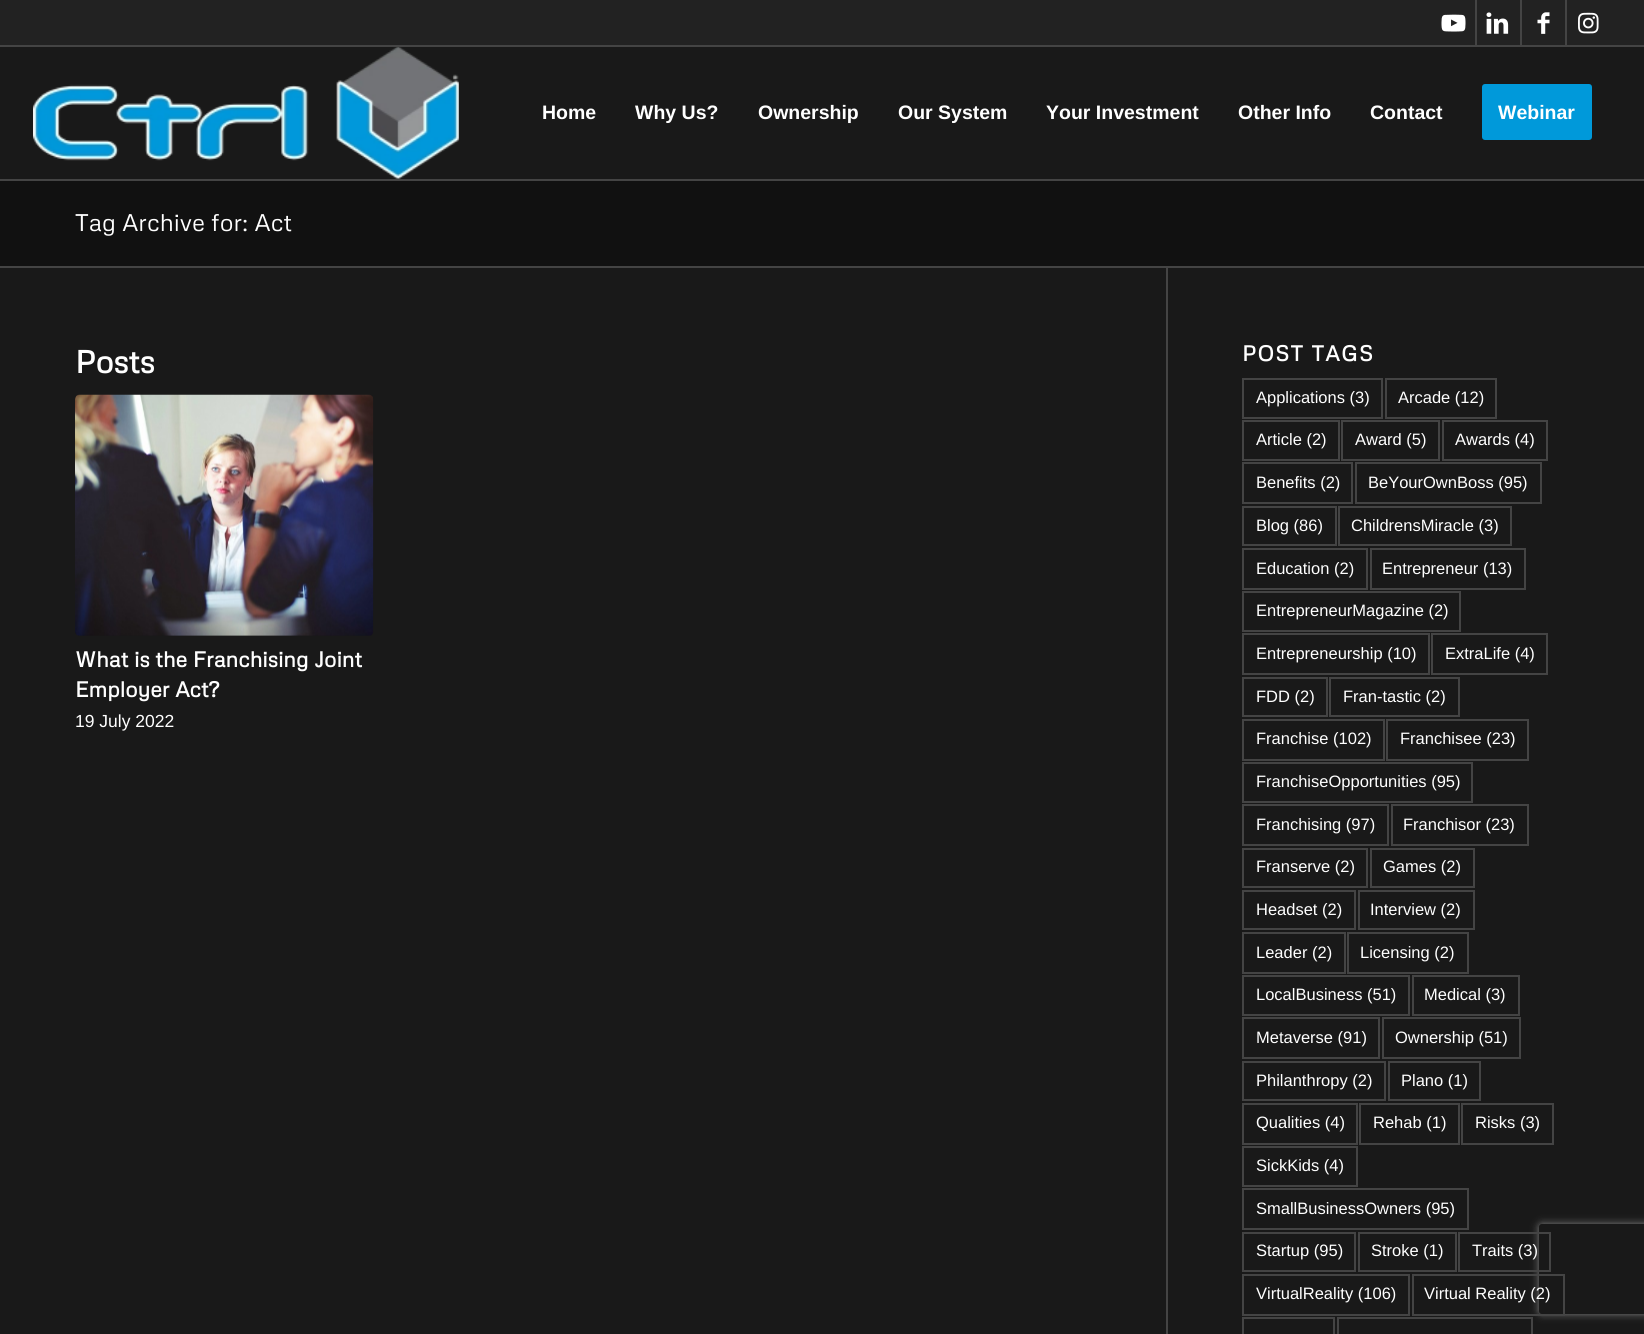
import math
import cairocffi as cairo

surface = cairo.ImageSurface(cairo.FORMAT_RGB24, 1644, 1334)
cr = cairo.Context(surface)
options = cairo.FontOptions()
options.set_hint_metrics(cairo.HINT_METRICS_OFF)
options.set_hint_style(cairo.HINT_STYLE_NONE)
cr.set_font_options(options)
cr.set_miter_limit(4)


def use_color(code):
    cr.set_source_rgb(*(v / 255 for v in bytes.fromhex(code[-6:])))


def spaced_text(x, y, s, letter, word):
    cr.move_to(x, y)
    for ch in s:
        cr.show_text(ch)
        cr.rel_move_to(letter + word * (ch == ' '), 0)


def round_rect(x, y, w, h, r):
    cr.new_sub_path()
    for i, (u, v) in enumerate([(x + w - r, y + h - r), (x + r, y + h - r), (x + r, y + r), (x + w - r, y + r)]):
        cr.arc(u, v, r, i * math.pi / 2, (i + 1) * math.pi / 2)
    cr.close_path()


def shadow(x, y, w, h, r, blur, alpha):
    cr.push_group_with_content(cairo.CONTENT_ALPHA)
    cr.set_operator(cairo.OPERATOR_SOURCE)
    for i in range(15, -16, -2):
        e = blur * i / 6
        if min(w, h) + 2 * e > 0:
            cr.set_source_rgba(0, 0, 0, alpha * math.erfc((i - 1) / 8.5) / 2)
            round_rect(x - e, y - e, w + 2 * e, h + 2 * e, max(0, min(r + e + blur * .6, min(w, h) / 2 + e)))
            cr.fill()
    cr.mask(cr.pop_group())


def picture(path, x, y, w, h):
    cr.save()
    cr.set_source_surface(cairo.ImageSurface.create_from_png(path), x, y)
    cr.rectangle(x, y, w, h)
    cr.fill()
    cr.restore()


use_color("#191919")
cr.paint()
use_color("#222222")
cr.rectangle(0, 0, 1644, 45)
cr.fill()
use_color("#444444")
cr.rectangle(0, 45, 1644, 2)
cr.fill()
cr.rectangle(1475, 0, 2, 45)
cr.fill()
picture("img1.png", 1441, 14, 25, 18)
cr.rectangle(1520, 0, 2, 45)
cr.fill()
picture("img2.png", 1486, 12, 23, 22)
cr.rectangle(1565, 0, 2, 45)
cr.fill()
picture("img3.png", 1537, 12, 13, 22)
picture("img4.png", 1578, 12, 21, 22)
cr.rectangle(0, 179, 1644, 2)
cr.fill()
picture("img5.png", 33, 47, 426, 132)
cr.select_font_face("Liberation Sans", cairo.FONT_SLANT_NORMAL, cairo.FONT_WEIGHT_BOLD)
cr.set_font_size(19.5)
use_color("#ffffff")
cr.move_to(542, 119)
cr.show_text("Home")
cr.move_to(635, 119)
cr.show_text("Why Us?")
cr.move_to(758, 119)
cr.show_text("Ownership")
cr.move_to(898, 119)
cr.show_text("Our System")
cr.move_to(1046, 119)
cr.show_text("Your Investment")
cr.move_to(1238, 119)
cr.show_text("Other Info")
cr.move_to(1370, 119)
cr.show_text("Contact")
use_color("#0099da")
round_rect(1483.5, 85.5, 107, 53, 1.5)
cr.fill_preserve()
cr.set_line_width(3)
cr.stroke()
use_color("#ffffff")
cr.move_to(1498, 119)
cr.show_text("Webinar")
use_color("#111111")
cr.rectangle(0, 181, 1644, 85)
cr.fill()
cr.select_font_face("Metrophobic")
cr.set_font_size(24)
use_color("#ffffff")
cr.move_to(75, 231)
cr.show_text("Tag Archive for: Act")
use_color("#444444")
cr.rectangle(0, 266, 1644, 2)
cr.fill()
cr.select_font_face("Metrophobic", cairo.FONT_SLANT_NORMAL, cairo.FONT_WEIGHT_BOLD)
cr.set_font_size(31.5)
use_color("#ffffff")
cr.move_to(75, 373)
cr.show_text("Posts")
picture("img6.png", 75, 394, 299, 242)
cr.set_font_size(21.5)
cr.move_to(75, 667)
cr.show_text("What is the Franchising Joint")
cr.move_to(75, 697)
cr.show_text("Employer Act?")
cr.select_font_face("Liberation Sans")
cr.set_font_size(17.5)
cr.move_to(75, 727)
cr.show_text("19 July 2022")
use_color("#444444")
cr.rectangle(1166, 267, 2, 1067)
cr.fill()
cr.select_font_face("Metrophobic", cairo.FONT_SLANT_NORMAL, cairo.FONT_WEIGHT_BOLD)
cr.set_font_size(21.5)
use_color("#ffffff")
spaced_text(1242, 361, "POST TAGS", 1.5, 0)
cr.rectangle(1243, 379, 139, 39)
use_color("#444444")
cr.set_line_width(2)
cr.stroke()
cr.select_font_face("Liberation Sans")
cr.set_font_size(16.5)
use_color("#ffffff")
cr.move_to(1256, 403)
cr.show_text("Applications (3)")
cr.rectangle(1386, 379, 110, 39)
use_color("#444444")
cr.stroke()
use_color("#ffffff")
cr.move_to(1398, 403)
cr.show_text("Arcade (12)")
cr.rectangle(1243, 421, 96, 39)
use_color("#444444")
cr.stroke()
use_color("#ffffff")
cr.move_to(1256, 445)
cr.show_text("Article (2)")
cr.rectangle(1342, 421, 97, 39)
use_color("#444444")
cr.stroke()
use_color("#ffffff")
cr.move_to(1355, 445)
cr.show_text("Award (5)")
cr.rectangle(1443, 421, 104, 39)
use_color("#444444")
cr.stroke()
use_color("#ffffff")
cr.move_to(1455, 445)
cr.show_text("Awards (4)")
cr.rectangle(1243, 463, 109, 40)
use_color("#444444")
cr.stroke()
use_color("#ffffff")
cr.move_to(1256, 488)
cr.show_text("Benefits (2)")
cr.rectangle(1356, 463, 185, 40)
use_color("#444444")
cr.stroke()
use_color("#ffffff")
cr.move_to(1368, 488)
cr.show_text("BeYourOwnBoss (95)")
cr.rectangle(1243, 507, 93, 38)
use_color("#444444")
cr.stroke()
use_color("#ffffff")
cr.move_to(1256, 531)
cr.show_text("Blog (86)")
cr.rectangle(1339, 507, 172, 38)
use_color("#444444")
cr.stroke()
use_color("#ffffff")
cr.move_to(1351, 531)
cr.show_text("ChildrensMiracle (3)")
cr.rectangle(1243, 549, 124, 40)
use_color("#444444")
cr.stroke()
use_color("#ffffff")
cr.move_to(1256, 574)
cr.show_text("Education (2)")
cr.rectangle(1371, 549, 154, 40)
use_color("#444444")
cr.stroke()
use_color("#ffffff")
cr.move_to(1382, 574)
cr.show_text("Entrepreneur (13)")
cr.rectangle(1243, 592, 217, 39)
use_color("#444444")
cr.stroke()
use_color("#ffffff")
cr.move_to(1256, 616)
cr.show_text("EntrepreneurMagazine (2)")
cr.rectangle(1243, 634, 186, 40)
use_color("#444444")
cr.stroke()
use_color("#ffffff")
cr.move_to(1256, 659)
cr.show_text("Entrepreneurship (10)")
cr.rectangle(1432, 634, 115, 40)
use_color("#444444")
cr.stroke()
use_color("#ffffff")
cr.move_to(1445, 659)
cr.show_text("ExtraLife (4)")
cr.rectangle(1243, 678, 84, 38)
use_color("#444444")
cr.stroke()
use_color("#ffffff")
cr.move_to(1256, 702)
cr.show_text("FDD (2)")
cr.rectangle(1330, 678, 129, 38)
use_color("#444444")
cr.stroke()
use_color("#ffffff")
cr.move_to(1343, 702)
cr.show_text("Fran-tastic (2)")
cr.rectangle(1243, 720, 141, 40)
use_color("#444444")
cr.stroke()
use_color("#ffffff")
cr.move_to(1256, 744)
cr.show_text("Franchise (102)")
cr.rectangle(1387, 720, 141, 40)
use_color("#444444")
cr.stroke()
use_color("#ffffff")
cr.move_to(1400, 744)
cr.show_text("Franchisee (23)")
cr.rectangle(1243, 763, 229, 39)
use_color("#444444")
cr.stroke()
use_color("#ffffff")
cr.move_to(1256, 787)
cr.show_text("FranchiseOpportunities (95)")
cr.rectangle(1243, 805, 145, 40)
use_color("#444444")
cr.stroke()
use_color("#ffffff")
cr.move_to(1256, 830)
cr.show_text("Franchising (97)")
cr.rectangle(1392, 805, 136, 40)
use_color("#444444")
cr.stroke()
use_color("#ffffff")
cr.move_to(1403, 830)
cr.show_text("Franchisor (23)")
cr.rectangle(1243, 849, 124, 38)
use_color("#444444")
cr.stroke()
use_color("#ffffff")
cr.move_to(1256, 872)
cr.show_text("Franserve (2)")
cr.rectangle(1371, 849, 103, 38)
use_color("#444444")
cr.stroke()
use_color("#ffffff")
cr.move_to(1383, 872)
cr.show_text("Games (2)")
cr.rectangle(1243, 891, 112, 38)
use_color("#444444")
cr.stroke()
use_color("#ffffff")
cr.move_to(1256, 915)
cr.show_text("Headset (2)")
cr.rectangle(1359, 891, 115, 38)
use_color("#444444")
cr.stroke()
use_color("#ffffff")
cr.move_to(1370, 915)
cr.show_text("Interview (2)")
cr.rectangle(1243, 933, 102, 40)
use_color("#444444")
cr.stroke()
use_color("#ffffff")
cr.move_to(1256, 958)
cr.show_text("Leader (2)")
cr.rectangle(1348, 933, 120, 40)
use_color("#444444")
cr.stroke()
use_color("#ffffff")
cr.move_to(1360, 958)
cr.show_text("Licensing (2)")
cr.rectangle(1243, 976, 166, 39)
use_color("#444444")
cr.stroke()
use_color("#ffffff")
cr.move_to(1256, 1000)
cr.show_text("LocalBusiness (51)")
cr.rectangle(1413, 976, 106, 39)
use_color("#444444")
cr.stroke()
use_color("#ffffff")
cr.move_to(1424, 1000)
cr.show_text("Medical (3)")
cr.rectangle(1243, 1018, 136, 40)
use_color("#444444")
cr.stroke()
use_color("#ffffff")
cr.move_to(1256, 1043)
cr.show_text("Metaverse (91)")
cr.rectangle(1383, 1018, 137, 40)
use_color("#444444")
cr.stroke()
use_color("#ffffff")
cr.move_to(1395, 1043)
cr.show_text("Ownership (51)")
cr.rectangle(1243, 1062, 142, 38)
use_color("#444444")
cr.stroke()
use_color("#ffffff")
cr.move_to(1256, 1086)
cr.show_text("Philanthropy (2)")
cr.rectangle(1389, 1062, 91, 38)
use_color("#444444")
cr.stroke()
use_color("#ffffff")
cr.move_to(1401, 1086)
cr.show_text("Plano (1)")
cr.rectangle(1243, 1104, 114, 40)
use_color("#444444")
cr.stroke()
use_color("#ffffff")
cr.move_to(1256, 1128)
cr.show_text("Qualities (4)")
cr.rectangle(1360, 1104, 99, 40)
use_color("#444444")
cr.stroke()
use_color("#ffffff")
cr.move_to(1373, 1128)
cr.show_text("Rehab (1)")
cr.rectangle(1462, 1104, 91, 40)
use_color("#444444")
cr.stroke()
use_color("#ffffff")
cr.move_to(1475, 1128)
cr.show_text("Risks (3)")
cr.rectangle(1243, 1147, 114, 39)
use_color("#444444")
cr.stroke()
use_color("#ffffff")
cr.move_to(1256, 1171)
cr.show_text("SickKids (4)")
cr.rectangle(1243, 1189, 225, 40)
use_color("#444444")
cr.stroke()
use_color("#ffffff")
cr.move_to(1256, 1214)
cr.show_text("SmallBusinessOwners (95)")
cr.rectangle(1243, 1233, 112, 38)
use_color("#444444")
cr.stroke()
use_color("#ffffff")
cr.move_to(1256, 1256)
cr.show_text("Startup (95)")
cr.rectangle(1359, 1233, 97, 38)
use_color("#444444")
cr.stroke()
use_color("#ffffff")
cr.move_to(1371, 1256)
cr.show_text("Stroke (1)")
cr.save()
cr.set_fill_rule(cairo.FILL_RULE_EVEN_ODD)
cr.new_path()
cr.move_to(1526, 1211)
cr.line_to(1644, 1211)
cr.line_to(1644, 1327)
cr.line_to(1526, 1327)
cr.close_path()
cr.move_to(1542, 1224)
cr.line_to(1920, 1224)
cr.curve_to(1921.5, 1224, 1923, 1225.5, 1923, 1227)
cr.line_to(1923, 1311)
cr.curve_to(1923, 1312.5, 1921.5, 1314, 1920, 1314)
cr.line_to(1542, 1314)
cr.curve_to(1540.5, 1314, 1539, 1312.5, 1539, 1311)
cr.line_to(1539, 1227)
cr.curve_to(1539, 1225.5, 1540.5, 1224, 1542, 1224)
cr.close_path()
cr.clip()
use_color("#808080")
shadow(1539, 1224, 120, 90, 3, 4, 1)
cr.restore()
cr.rectangle(1459, 1233, 91, 38)
use_color("#444444")
cr.stroke()
use_color("#ffffff")
cr.move_to(1472, 1256)
cr.show_text("Traits (3)")
cr.rectangle(1243, 1275, 166, 40)
use_color("#444444")
cr.stroke()
use_color("#ffffff")
cr.move_to(1256, 1299)
cr.show_text("VirtualReality (106)")
cr.rectangle(1413, 1275, 151, 40)
use_color("#444444")
cr.stroke()
use_color("#ffffff")
cr.move_to(1424, 1299)
cr.show_text("Virtual Reality (2)")
cr.rectangle(1243, 1318, 91, 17)
use_color("#444444")
cr.stroke()
cr.rectangle(1338, 1318, 194, 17)
cr.stroke()
surface.write_to_png("result.png")
